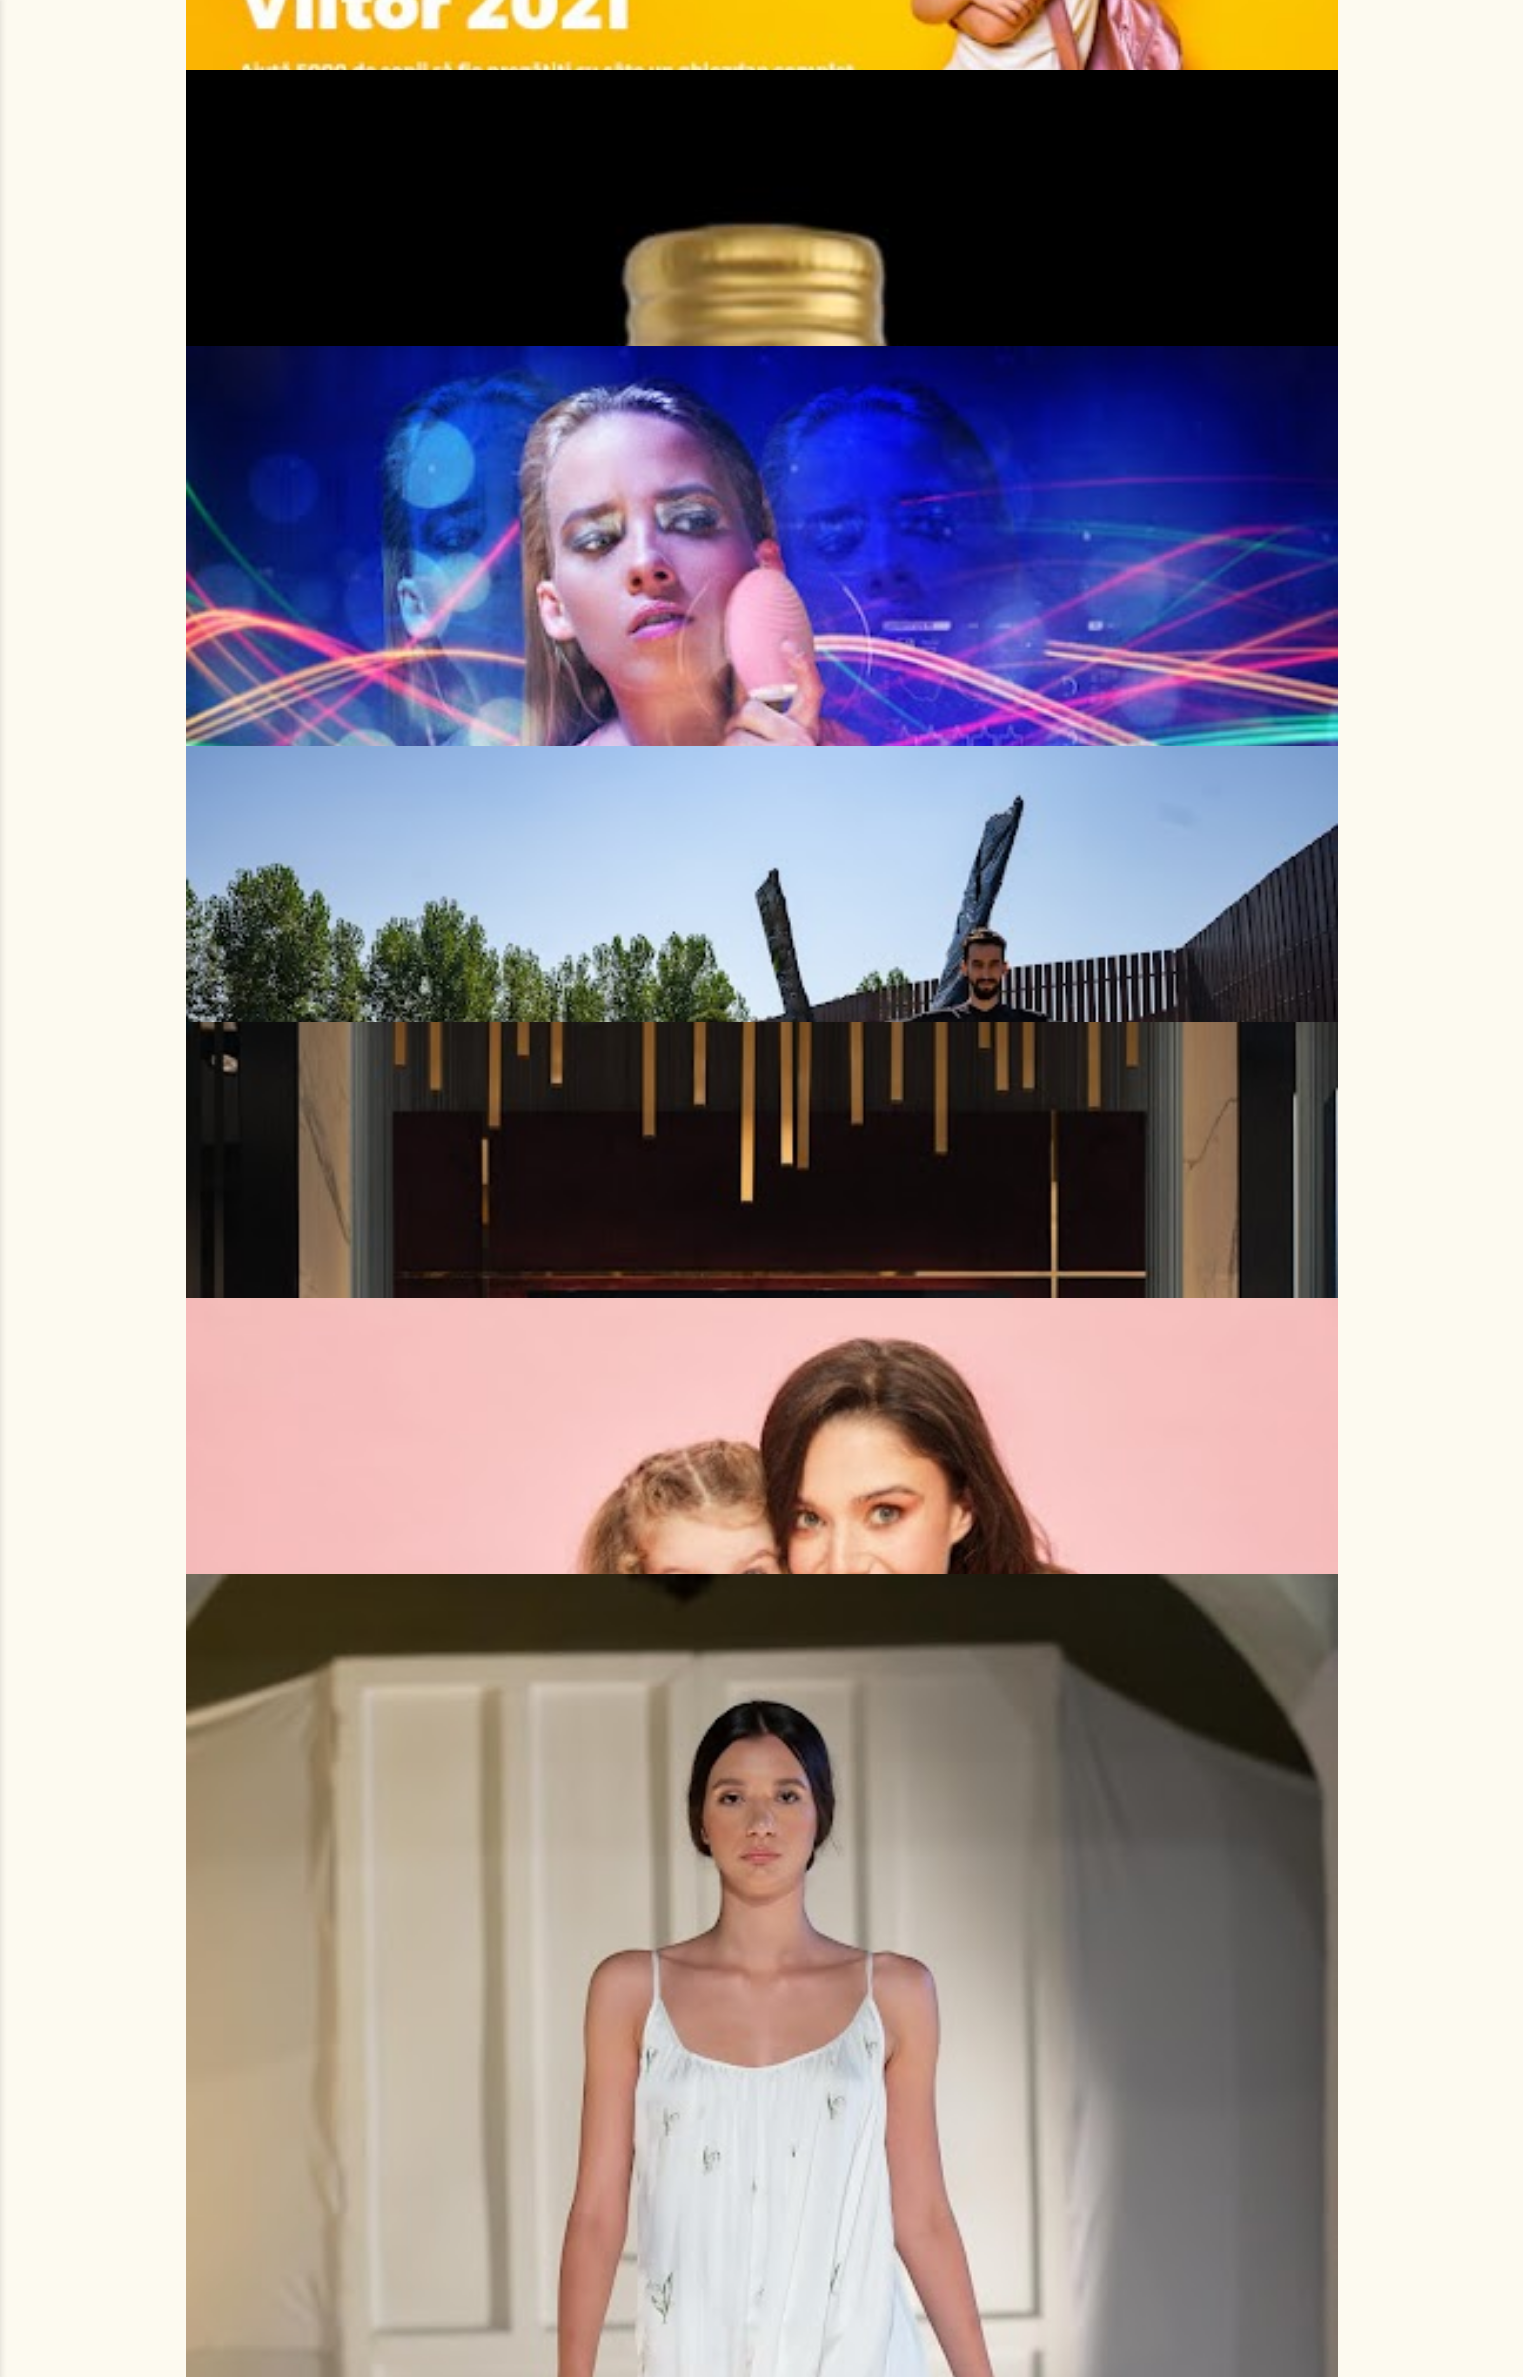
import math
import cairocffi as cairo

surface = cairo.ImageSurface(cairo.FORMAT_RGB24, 1523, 2377)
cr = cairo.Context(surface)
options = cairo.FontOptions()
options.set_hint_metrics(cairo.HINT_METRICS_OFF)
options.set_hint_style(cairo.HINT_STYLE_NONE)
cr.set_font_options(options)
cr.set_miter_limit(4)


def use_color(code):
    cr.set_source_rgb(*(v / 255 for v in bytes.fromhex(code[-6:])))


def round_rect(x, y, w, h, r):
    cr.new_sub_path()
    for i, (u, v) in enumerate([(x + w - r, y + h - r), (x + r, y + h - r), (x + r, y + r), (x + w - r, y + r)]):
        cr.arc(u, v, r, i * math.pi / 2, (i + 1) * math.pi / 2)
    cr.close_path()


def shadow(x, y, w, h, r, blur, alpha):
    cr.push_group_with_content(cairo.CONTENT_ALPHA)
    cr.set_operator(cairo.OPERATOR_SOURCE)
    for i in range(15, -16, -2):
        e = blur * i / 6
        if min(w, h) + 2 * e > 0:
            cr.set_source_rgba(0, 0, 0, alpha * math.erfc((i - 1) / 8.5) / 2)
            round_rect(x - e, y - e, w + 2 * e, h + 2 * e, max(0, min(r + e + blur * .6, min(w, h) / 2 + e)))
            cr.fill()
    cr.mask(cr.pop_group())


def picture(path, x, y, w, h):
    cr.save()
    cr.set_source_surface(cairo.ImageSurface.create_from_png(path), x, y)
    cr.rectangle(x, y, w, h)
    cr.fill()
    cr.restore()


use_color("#fdfaf0")
cr.paint()
use_color("#000000")
shadow(-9, 0, 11, 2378, 0, 3, 0.1)
picture("img1.png", 186, 0, 1152, 70)
picture("img2.png", 186, 70, 1152, 276)
picture("img3.png", 186, 346, 1152, 400)
picture("img4.png", 186, 746, 1152, 276)
picture("img5.png", 186, 1022, 1152, 276)
picture("img6.png", 186, 1298, 1152, 276)
picture("img7.png", 186, 1574, 1152, 803)
surface.write_to_png("result.png")
